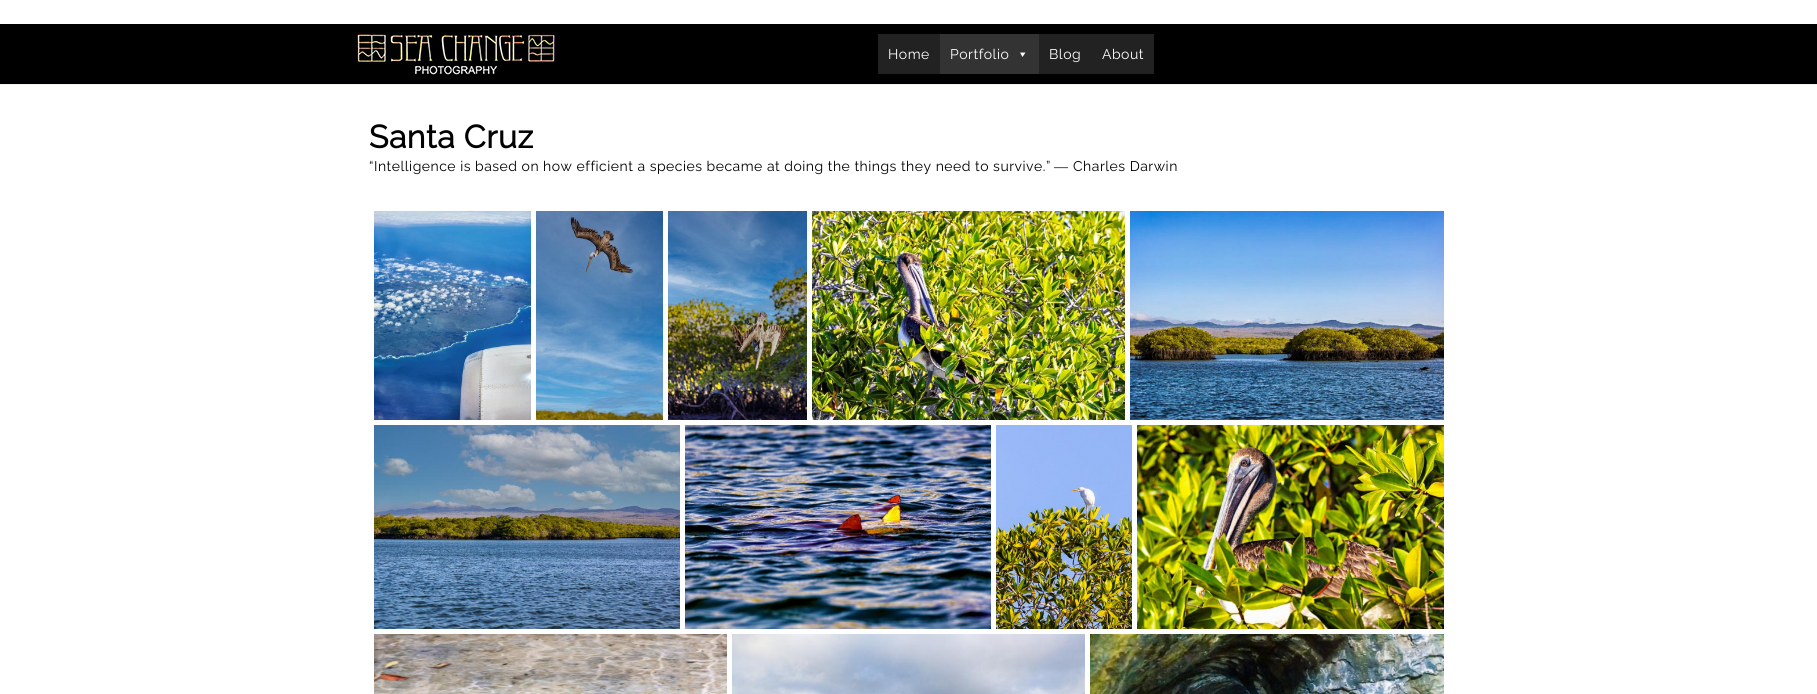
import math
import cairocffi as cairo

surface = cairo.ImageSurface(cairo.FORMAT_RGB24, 1817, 694)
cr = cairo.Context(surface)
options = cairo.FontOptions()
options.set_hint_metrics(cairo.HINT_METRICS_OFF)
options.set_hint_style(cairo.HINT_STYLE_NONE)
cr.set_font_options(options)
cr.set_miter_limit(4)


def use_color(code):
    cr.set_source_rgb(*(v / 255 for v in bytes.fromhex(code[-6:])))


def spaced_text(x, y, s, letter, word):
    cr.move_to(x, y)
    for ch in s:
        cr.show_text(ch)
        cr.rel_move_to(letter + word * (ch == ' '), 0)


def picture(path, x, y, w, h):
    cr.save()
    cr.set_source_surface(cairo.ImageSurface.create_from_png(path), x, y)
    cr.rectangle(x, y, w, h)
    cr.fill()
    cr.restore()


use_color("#ffffff")
cr.paint()
use_color("#000000")
cr.rectangle(0, 24, 1817, 60)
cr.fill()
use_color("#f0f2f7")
cr.rectangle(0, 84, 1817, 1)
cr.fill()
picture("img1.png", 354, 31, 201, 44)
use_color("#222222")
cr.rectangle(878, 34, 276, 40)
cr.fill()
cr.select_font_face("Raleway Thin")
cr.set_font_size(14)
use_color("#ffffff")
spaced_text(888, 59, "Home", 0.5, 0)
use_color("#333333")
cr.rectangle(940, 34, 99, 40)
cr.fill()
use_color("#ffffff")
spaced_text(950, 59, "Portfolio", 0.5, 0)
cr.new_path()
cr.move_to(1025.5, 52.5)
cr.line_to(1022.5, 57)
cr.line_to(1020, 52.5)
cr.close_path()
cr.fill()
spaced_text(1049, 59, "Blog", 0.5, 0)
spaced_text(1102, 59, "About", 0.5, 0)
cr.select_font_face("Raleway", cairo.FONT_SLANT_NORMAL, cairo.FONT_WEIGHT_BOLD)
cr.set_font_size(32)
use_color("#000000")
spaced_text(369, 148, "Santa Cruz", 0.5, 0)
cr.select_font_face("Raleway Thin")
cr.set_font_size(14)
spaced_text(369, 171, "“Intelligence is based on how efficient a species became at doing the things they need to survive.”", 0.5, 0)
cr.select_font_face("Liberation Serif")
spaced_text(1054, 171, "―", 0.5, 0)
cr.select_font_face("Raleway Thin")
spaced_text(1073, 171, "Charles Darwin", 0.5, 0)
picture("img2.png", 374, 211, 157, 209)
picture("img3.png", 536, 211, 127, 209)
picture("img4.png", 668, 211, 139, 209)
picture("img5.png", 812, 211, 313, 209)
picture("img6.png", 1130, 211, 314, 209)
picture("img7.png", 374, 425, 306, 204)
picture("img8.png", 685, 425, 306, 204)
picture("img9.png", 996, 425, 136, 204)
picture("img10.png", 1137, 425, 307, 204)
picture("img11.png", 374, 634, 353, 60)
picture("img12.png", 732, 634, 353, 60)
picture("img13.png", 1090, 634, 354, 60)
surface.write_to_png("result.png")
